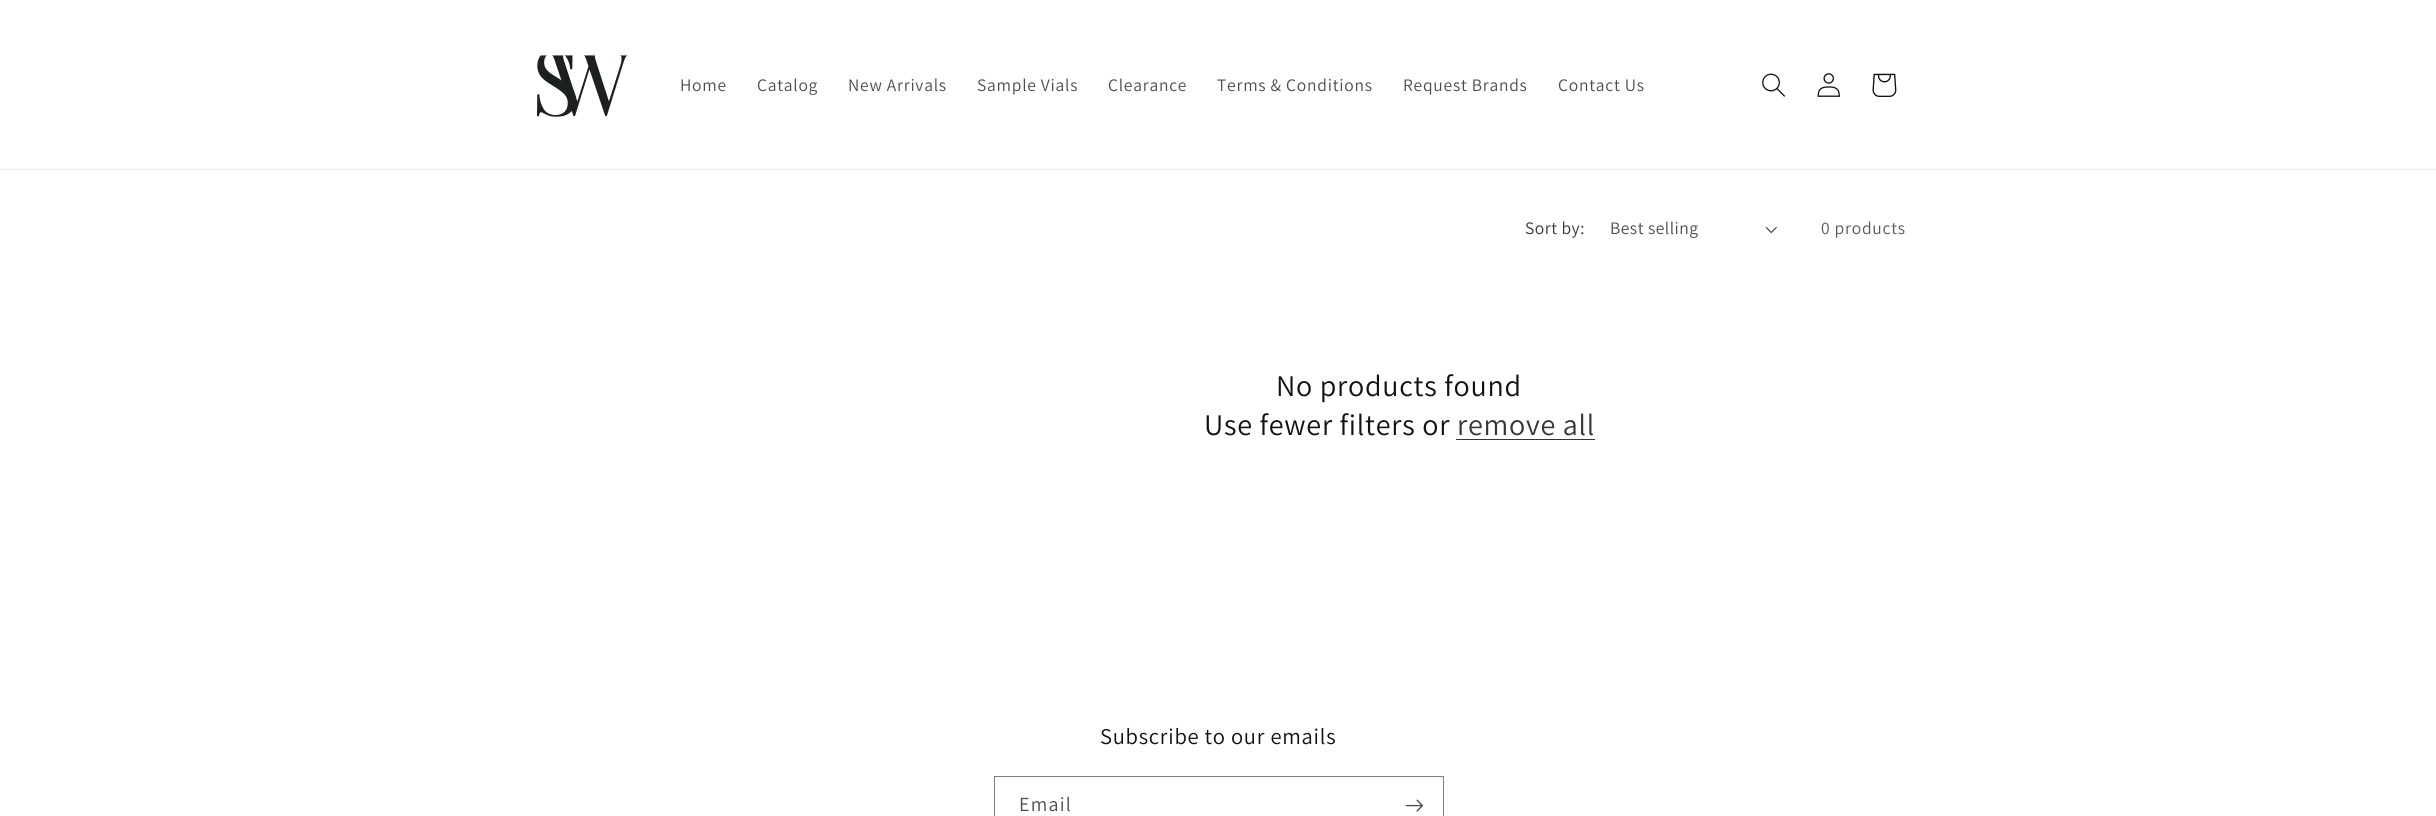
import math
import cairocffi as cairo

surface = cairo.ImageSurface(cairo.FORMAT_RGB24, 2436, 816)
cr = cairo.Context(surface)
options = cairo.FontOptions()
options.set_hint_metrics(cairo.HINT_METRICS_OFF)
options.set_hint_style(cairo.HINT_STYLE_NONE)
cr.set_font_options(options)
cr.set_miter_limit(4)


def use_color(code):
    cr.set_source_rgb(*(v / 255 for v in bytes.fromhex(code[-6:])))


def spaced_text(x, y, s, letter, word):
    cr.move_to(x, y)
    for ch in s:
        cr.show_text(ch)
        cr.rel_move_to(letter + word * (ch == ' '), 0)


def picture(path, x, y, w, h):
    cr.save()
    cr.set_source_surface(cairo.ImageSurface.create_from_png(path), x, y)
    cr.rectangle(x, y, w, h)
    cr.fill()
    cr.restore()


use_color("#ffffff")
cr.paint()
use_color("#ececec")
cr.rectangle(0, 169, 2436, 1)
cr.fill()
picture("img1.png", 536, 55, 92, 62)
cr.select_font_face("Assistant")
cr.set_font_size(17.5)
use_color("#4d4d4d")
spaced_text(680, 91, "Home", 0.75, 0)
spaced_text(757, 91, "Catalog", 0.75, 0)
spaced_text(848, 91, "New Arrivals", 0.75, 0)
spaced_text(977, 91, "Sample Vials", 0.75, 0)
spaced_text(1108, 91, "Clearance", 0.75, 0)
spaced_text(1217, 91, "Terms & Conditions", 0.75, 0)
spaced_text(1403, 91, "Request Brands", 0.75, 0)
spaced_text(1558, 91, "Contact Us", 0.75, 0)
picture("img2.png", 1762, 73, 23, 24)
picture("img3.png", 1817, 73, 23, 24)
picture("img4.png", 1872, 73, 25, 24)
use_color("#363636")
spaced_text(1525, 234, "Sort by:", 0.5, 0)
use_color("#4d4d4d")
spaced_text(1610, 234, "Best selling", 0.5, 0)
picture("img5.png", 1765, 226, 12, 8)
use_color("#595959")
spaced_text(1821, 234, "0 products", 0.75, 0)
cr.set_font_size(30)
use_color("#121212")
spaced_text(1276, 396, "No products found", 0.75, 0)
spaced_text(1204, 435, "Use fewer filters or", 0.75, 0)
use_color("#363636")
spaced_text(1457, 435, "remove all", 0.75, 0)
cr.rectangle(1456, 439, 139, 1)
cr.fill()
cr.set_font_size(22.5)
use_color("#121212")
spaced_text(1100, 744, "Subscribe to our emails", 0.75, 0)
cr.rectangle(994.5, 776.5, 449, 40)
use_color("#7d7d7d")
cr.set_line_width(1)
cr.stroke()
cr.set_font_size(20)
use_color("#4d4d4d")
spaced_text(1019, 811, "Email", 1.25, 0)
picture("img6.png", 1405, 799, 18, 13)
surface.write_to_png("result.png")
